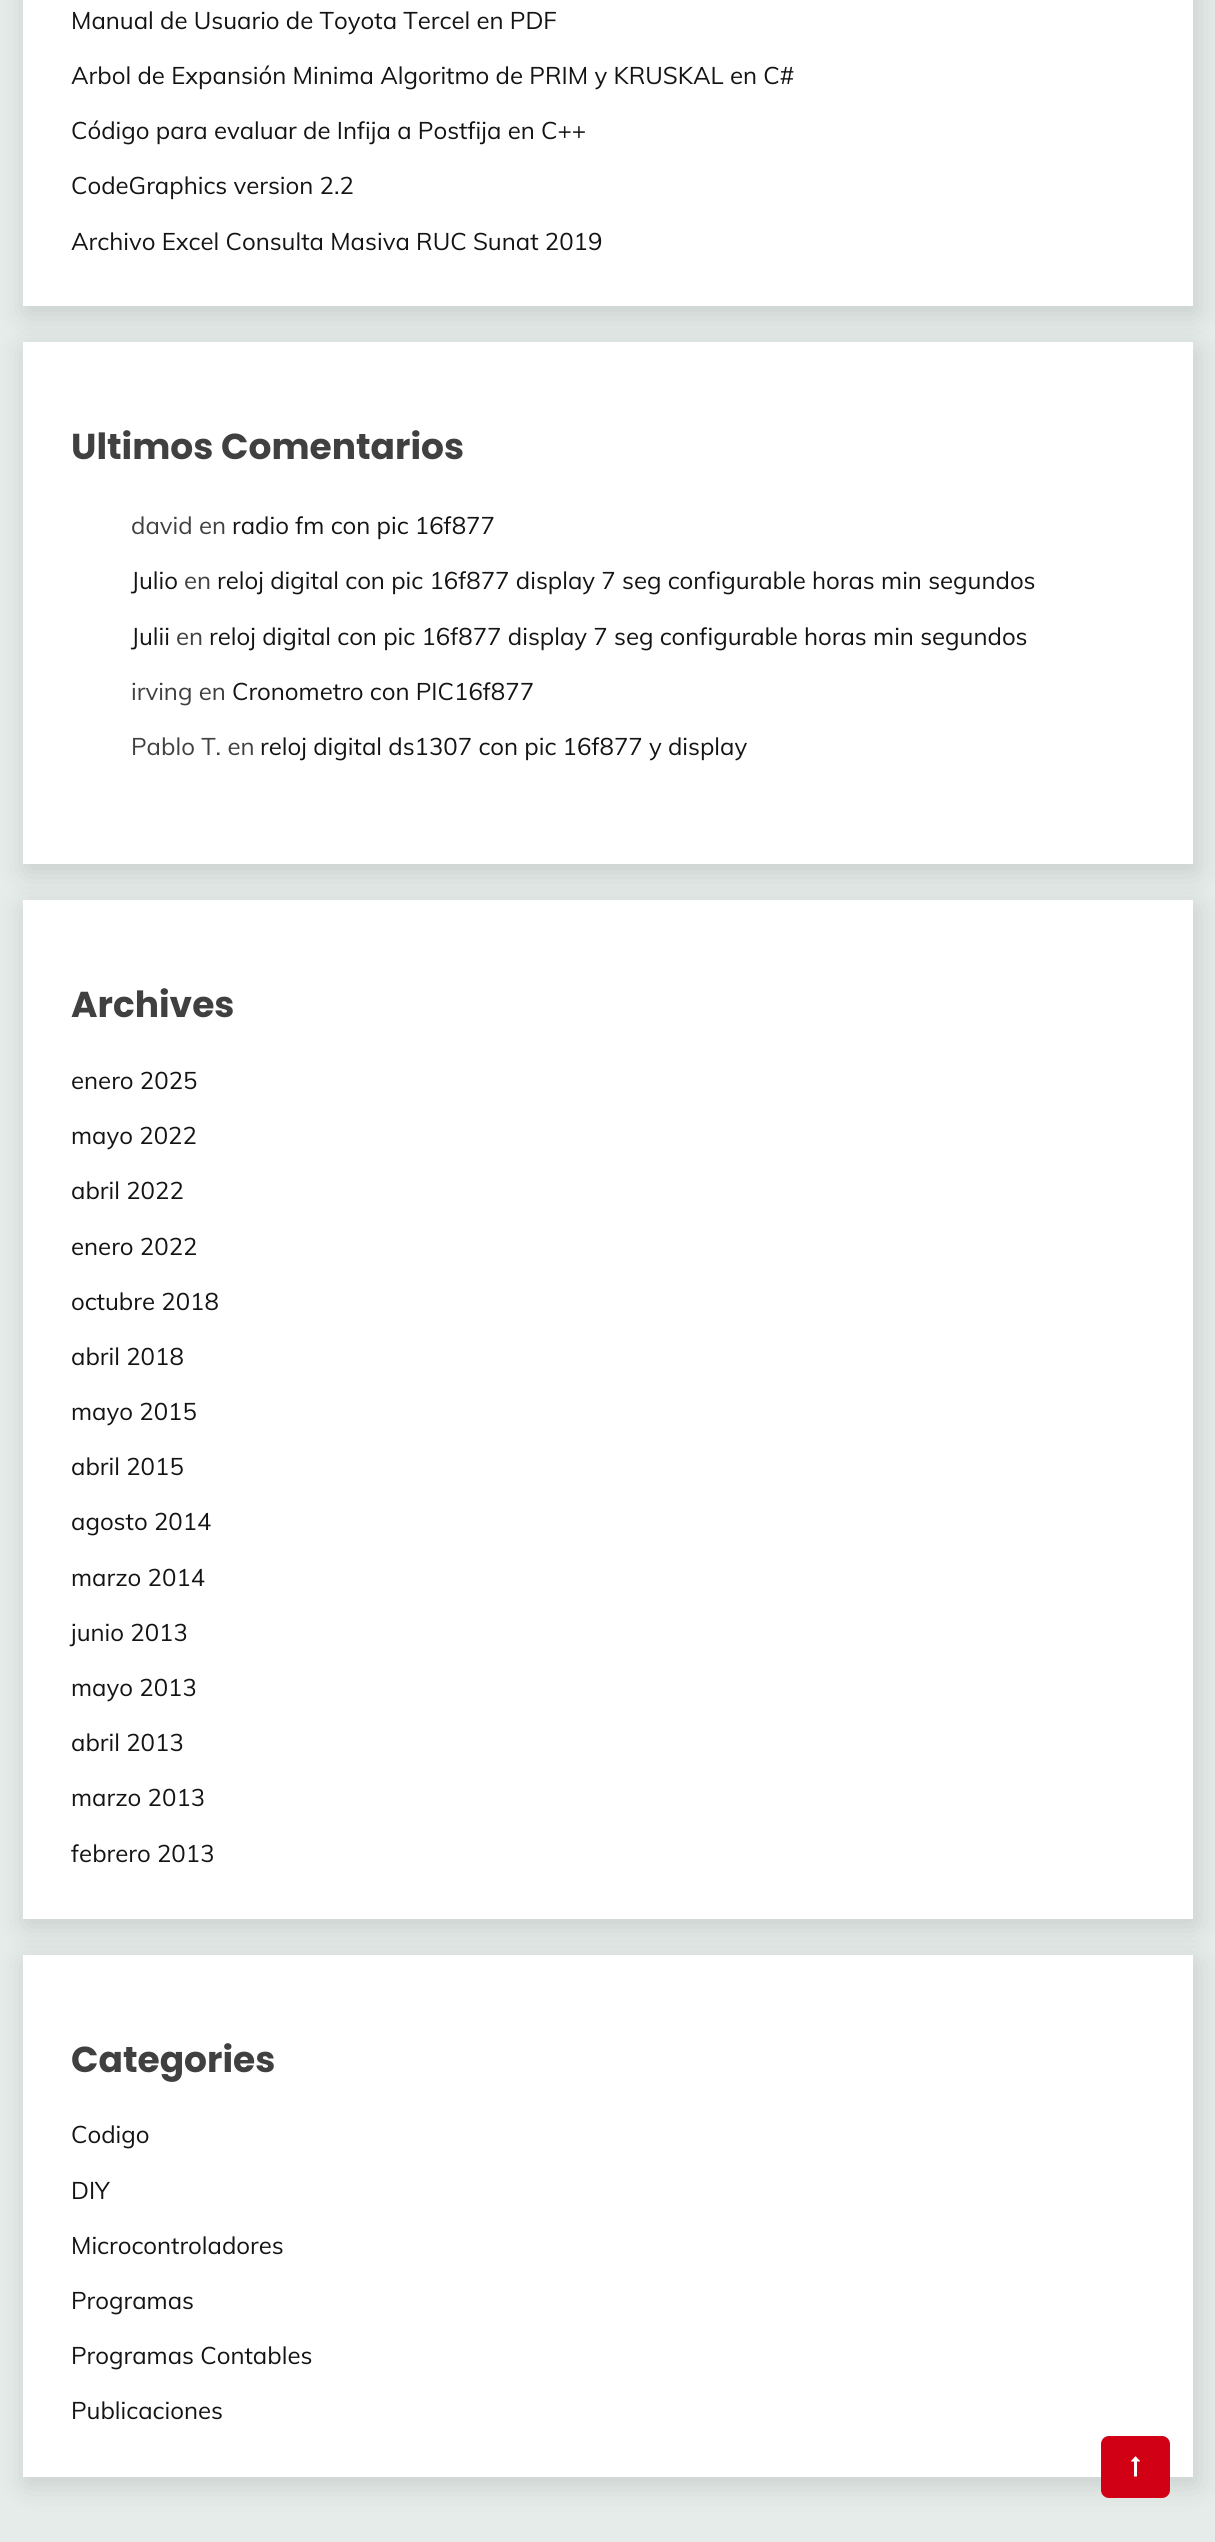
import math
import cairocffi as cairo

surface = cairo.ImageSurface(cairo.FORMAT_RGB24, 1215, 2542)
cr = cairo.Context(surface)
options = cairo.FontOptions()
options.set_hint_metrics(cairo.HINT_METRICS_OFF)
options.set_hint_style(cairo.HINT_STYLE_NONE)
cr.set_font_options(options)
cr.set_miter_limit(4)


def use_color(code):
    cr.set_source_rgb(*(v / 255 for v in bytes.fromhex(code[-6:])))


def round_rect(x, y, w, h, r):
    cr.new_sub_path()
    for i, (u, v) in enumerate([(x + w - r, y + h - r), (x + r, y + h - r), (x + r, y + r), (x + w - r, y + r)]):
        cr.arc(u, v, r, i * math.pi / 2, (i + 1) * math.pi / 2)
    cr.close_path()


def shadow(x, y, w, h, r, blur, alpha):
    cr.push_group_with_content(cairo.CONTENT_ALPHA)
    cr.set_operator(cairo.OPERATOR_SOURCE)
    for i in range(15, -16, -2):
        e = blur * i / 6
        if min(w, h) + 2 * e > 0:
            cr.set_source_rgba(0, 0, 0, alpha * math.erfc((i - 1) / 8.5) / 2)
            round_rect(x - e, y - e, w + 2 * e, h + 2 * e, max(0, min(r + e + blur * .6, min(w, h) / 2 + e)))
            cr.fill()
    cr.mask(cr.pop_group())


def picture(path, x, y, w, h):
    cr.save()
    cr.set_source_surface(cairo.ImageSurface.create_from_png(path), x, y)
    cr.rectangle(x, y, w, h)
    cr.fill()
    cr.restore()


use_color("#e5ece9")
cr.paint()
use_color("#000000")
shadow(26, -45, 1170, 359, 0, 15, 0.14)
use_color("#ffffff")
cr.rectangle(23, 0, 1170, 306)
cr.fill()
cr.select_font_face("Muli")
cr.set_font_size(24)
use_color("#141413")
cr.move_to(71, 29)
cr.show_text("Manual de Usuario de Toyota Tercel en PDF")
cr.move_to(71, 84)
cr.show_text("Arbol de Expansión Minima Algoritmo de PRIM y KRUSKAL en C#")
cr.move_to(71, 139)
cr.show_text("Código para evaluar de Infija a Postfija en C++")
cr.move_to(71, 194)
cr.show_text("CodeGraphics version 2.2")
cr.move_to(71, 250)
cr.show_text("Archivo Excel Consulta Masiva RUC Sunat 2019")
use_color("#000000")
shadow(26, 350, 1170, 522, 0, 15, 0.14)
use_color("#ffffff")
cr.rectangle(23, 342, 1170, 522)
cr.fill()
cr.select_font_face("Poppins", cairo.FONT_SLANT_NORMAL, cairo.FONT_WEIGHT_BOLD)
cr.set_font_size(36)
use_color("#404040")
cr.move_to(71, 459)
cr.show_text("Ultimos Comentarios")
cr.select_font_face("Muli")
cr.set_font_size(24)
cr.move_to(131, 534)
cr.show_text("david en")
use_color("#141413")
cr.move_to(232, 534)
cr.show_text("radio fm con pic 16f877")
cr.move_to(131, 589)
cr.show_text("Julio")
use_color("#404040")
cr.move_to(184, 589)
cr.show_text("en")
use_color("#141413")
cr.move_to(217, 589)
cr.show_text("reloj digital con pic 16f877 display 7 seg configurable horas min segundos")
cr.move_to(131, 645)
cr.show_text("Julii")
use_color("#404040")
cr.move_to(176, 645)
cr.show_text("en")
use_color("#141413")
cr.move_to(209, 645)
cr.show_text("reloj digital con pic 16f877 display 7 seg configurable horas min segundos")
use_color("#404040")
cr.move_to(131, 700)
cr.show_text("irving en")
use_color("#141413")
cr.move_to(232, 700)
cr.show_text("Cronometro con PIC16f877")
use_color("#404040")
cr.move_to(131, 755)
cr.show_text("Pablo T. en")
use_color("#141413")
cr.move_to(260, 755)
cr.show_text("reloj digital ds1307 con pic 16f877 y display")
use_color("#000000")
shadow(26, 908, 1170, 1018, 0, 15, 0.14)
use_color("#ffffff")
cr.rectangle(23, 900, 1170, 1019)
cr.fill()
cr.select_font_face("Poppins", cairo.FONT_SLANT_NORMAL, cairo.FONT_WEIGHT_BOLD)
cr.set_font_size(36)
use_color("#404040")
cr.move_to(71, 1017)
cr.show_text("Archives")
cr.select_font_face("Muli")
cr.set_font_size(24)
use_color("#141413")
cr.move_to(71, 1089)
cr.show_text("enero 2025")
cr.move_to(71, 1144)
cr.show_text("mayo 2022")
cr.move_to(71, 1199)
cr.show_text("abril 2022")
cr.move_to(71, 1255)
cr.show_text("enero 2022")
cr.move_to(71, 1310)
cr.show_text("octubre 2018")
cr.move_to(71, 1365)
cr.show_text("abril 2018")
cr.move_to(71, 1420)
cr.show_text("mayo 2015")
cr.move_to(71, 1475)
cr.show_text("abril 2015")
cr.move_to(71, 1530)
cr.show_text("agosto 2014")
cr.move_to(71, 1586)
cr.show_text("marzo 2014")
cr.move_to(71, 1641)
cr.show_text("junio 2013")
cr.move_to(71, 1696)
cr.show_text("mayo 2013")
cr.move_to(71, 1751)
cr.show_text("abril 2013")
cr.move_to(71, 1806)
cr.show_text("marzo 2013")
cr.move_to(71, 1862)
cr.show_text("febrero 2013")
use_color("#000000")
shadow(26, 1962, 1170, 522, 0, 15, 0.14)
use_color("#ffffff")
cr.rectangle(23, 1955, 1170, 522)
cr.fill()
cr.select_font_face("Poppins", cairo.FONT_SLANT_NORMAL, cairo.FONT_WEIGHT_BOLD)
cr.set_font_size(36)
use_color("#404040")
cr.move_to(71, 2072)
cr.show_text("Categories")
cr.select_font_face("Muli")
cr.set_font_size(24)
use_color("#141413")
cr.move_to(71, 2143)
cr.show_text("Codigo")
cr.move_to(71, 2199)
cr.show_text("DIY")
cr.move_to(71, 2254)
cr.show_text("Microcontroladores")
cr.move_to(71, 2309)
cr.show_text("Programas")
cr.move_to(71, 2364)
cr.show_text("Programas Contables")
cr.move_to(71, 2419)
cr.show_text("Publicaciones")
use_color("#d10014")
round_rect(1101, 2436, 69, 62, 8)
cr.fill()
picture("img1.png", 1131, 2456, 9, 21)
surface.write_to_png("result.png")
